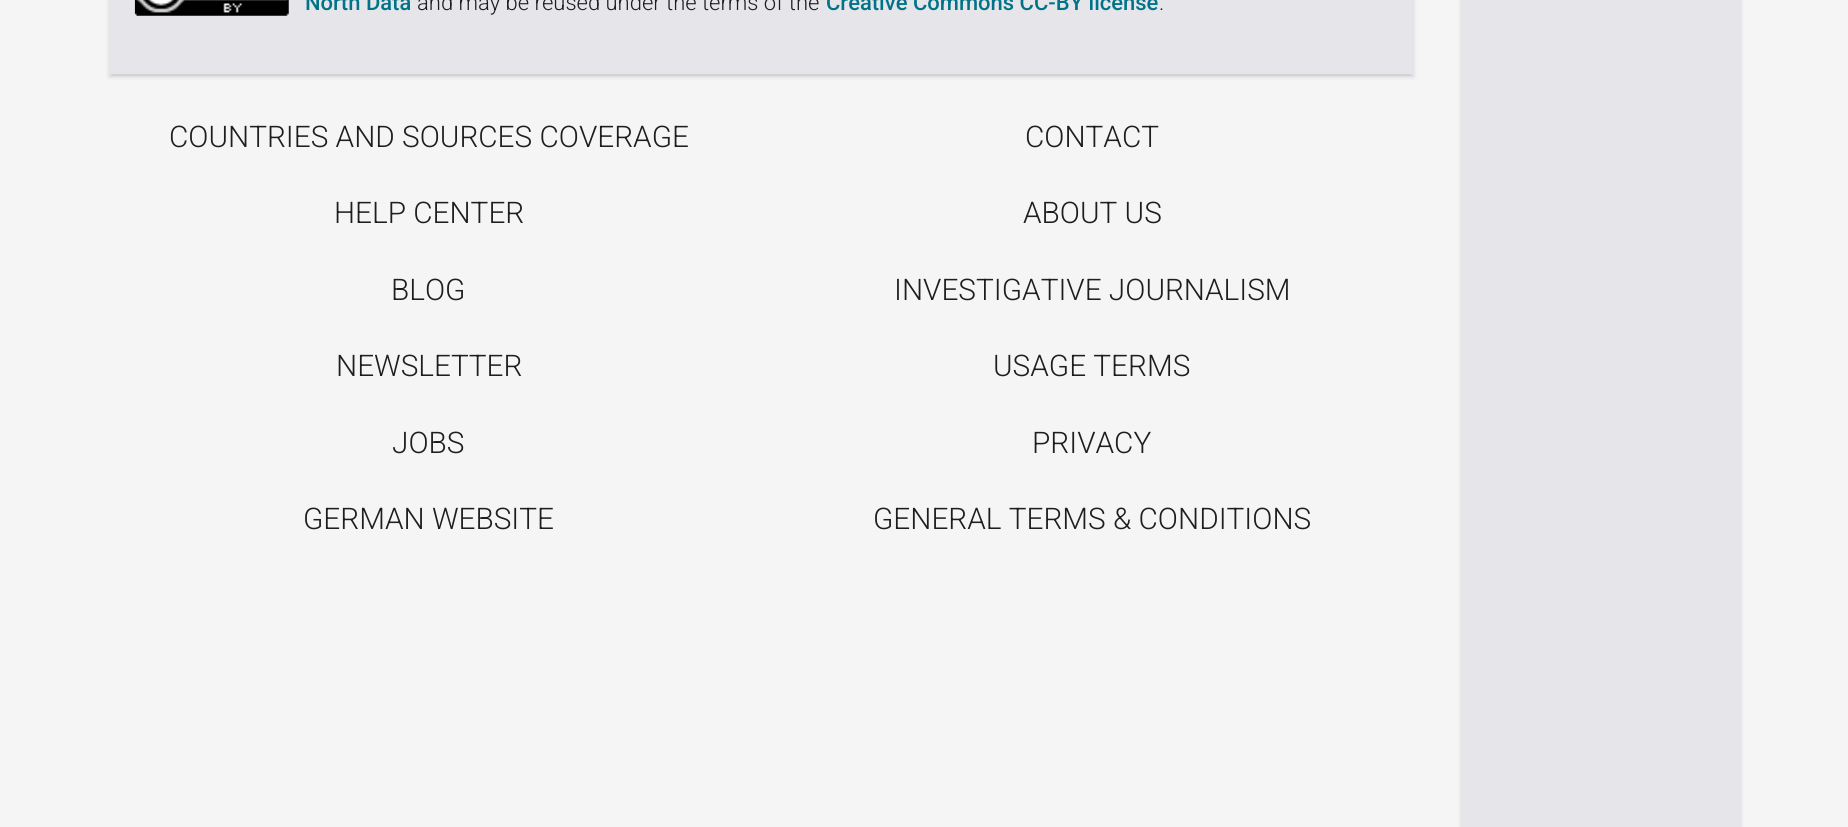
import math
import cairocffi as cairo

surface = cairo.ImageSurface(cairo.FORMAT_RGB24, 1848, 827)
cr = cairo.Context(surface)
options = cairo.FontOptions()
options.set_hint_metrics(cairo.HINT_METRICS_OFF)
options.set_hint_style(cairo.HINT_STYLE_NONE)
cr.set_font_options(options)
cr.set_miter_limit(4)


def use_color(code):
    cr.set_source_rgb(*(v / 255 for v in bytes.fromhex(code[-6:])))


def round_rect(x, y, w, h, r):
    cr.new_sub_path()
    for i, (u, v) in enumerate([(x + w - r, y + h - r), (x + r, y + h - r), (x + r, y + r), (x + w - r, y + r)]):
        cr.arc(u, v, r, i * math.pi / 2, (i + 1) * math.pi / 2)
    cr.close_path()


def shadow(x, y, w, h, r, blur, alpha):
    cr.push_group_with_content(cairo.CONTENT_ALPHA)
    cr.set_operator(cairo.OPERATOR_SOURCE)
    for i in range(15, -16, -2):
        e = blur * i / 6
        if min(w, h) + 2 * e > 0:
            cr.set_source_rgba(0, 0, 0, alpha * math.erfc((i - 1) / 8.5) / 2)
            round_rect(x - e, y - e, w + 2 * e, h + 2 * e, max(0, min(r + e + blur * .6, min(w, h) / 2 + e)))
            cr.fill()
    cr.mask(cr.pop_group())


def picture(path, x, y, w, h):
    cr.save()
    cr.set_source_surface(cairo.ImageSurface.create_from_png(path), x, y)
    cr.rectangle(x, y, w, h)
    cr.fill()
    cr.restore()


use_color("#f5f5f5")
cr.paint()
use_color("#222426")
shadow(109, -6, 1305, 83, 0, 2, 0.15)
cr.rectangle(110, -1, 1303, 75)
use_color("#e6e5e9")
cr.stroke()
use_color("#222426")
shadow(112, -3, 1299, 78, 0, 1, 0.15)
use_color("#e6e5e9")
cr.rectangle(111, 0, 1301, 74)
cr.fill()
picture("img1.png", 134, 0, 155, 16)
cr.select_font_face("Roboto Medium")
cr.set_font_size(22)
use_color("#007388")
cr.move_to(305, 10)
cr.show_text("North Data")
cr.select_font_face("Roboto Light")
use_color("#1e1e1e")
cr.move_to(417, 10)
cr.show_text("and may be reused under the terms of the")
cr.select_font_face("Roboto Medium")
use_color("#007388")
cr.move_to(826, 10)
cr.show_text("Creative Commons CC-BY license")
cr.select_font_face("Roboto Light")
use_color("#1e1e1e")
cr.move_to(1159, 10)
cr.show_text(".")
cr.set_font_size(29.75)
cr.move_to(169, 147)
cr.show_text("COUNTRIES AND SOURCES COVERAGE")
cr.move_to(334, 223)
cr.show_text("HELP CENTER")
cr.move_to(391, 300)
cr.show_text("BLOG")
cr.move_to(336, 376)
cr.show_text("NEWSLETTER")
cr.move_to(392, 453)
cr.show_text("JOBS")
cr.move_to(303, 529)
cr.show_text("GERMAN WEBSITE")
cr.move_to(1025, 147)
cr.show_text("CONTACT")
cr.move_to(1023, 223)
cr.show_text("ABOUT US")
cr.move_to(894, 300)
cr.show_text("INVESTIGATIVE JOURNALISM")
cr.move_to(993, 376)
cr.show_text("USAGE TERMS")
cr.move_to(1032, 453)
cr.show_text("PRIVACY")
cr.move_to(873, 529)
cr.show_text("GENERAL TERMS & CONDITIONS")
use_color("#222426")
shadow(1461, -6, 280, 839, 0, 2, 0.15)
use_color("#e6e5ea")
cr.rectangle(1461, 0, 280, 827)
cr.fill()
surface.write_to_png("result.png")
